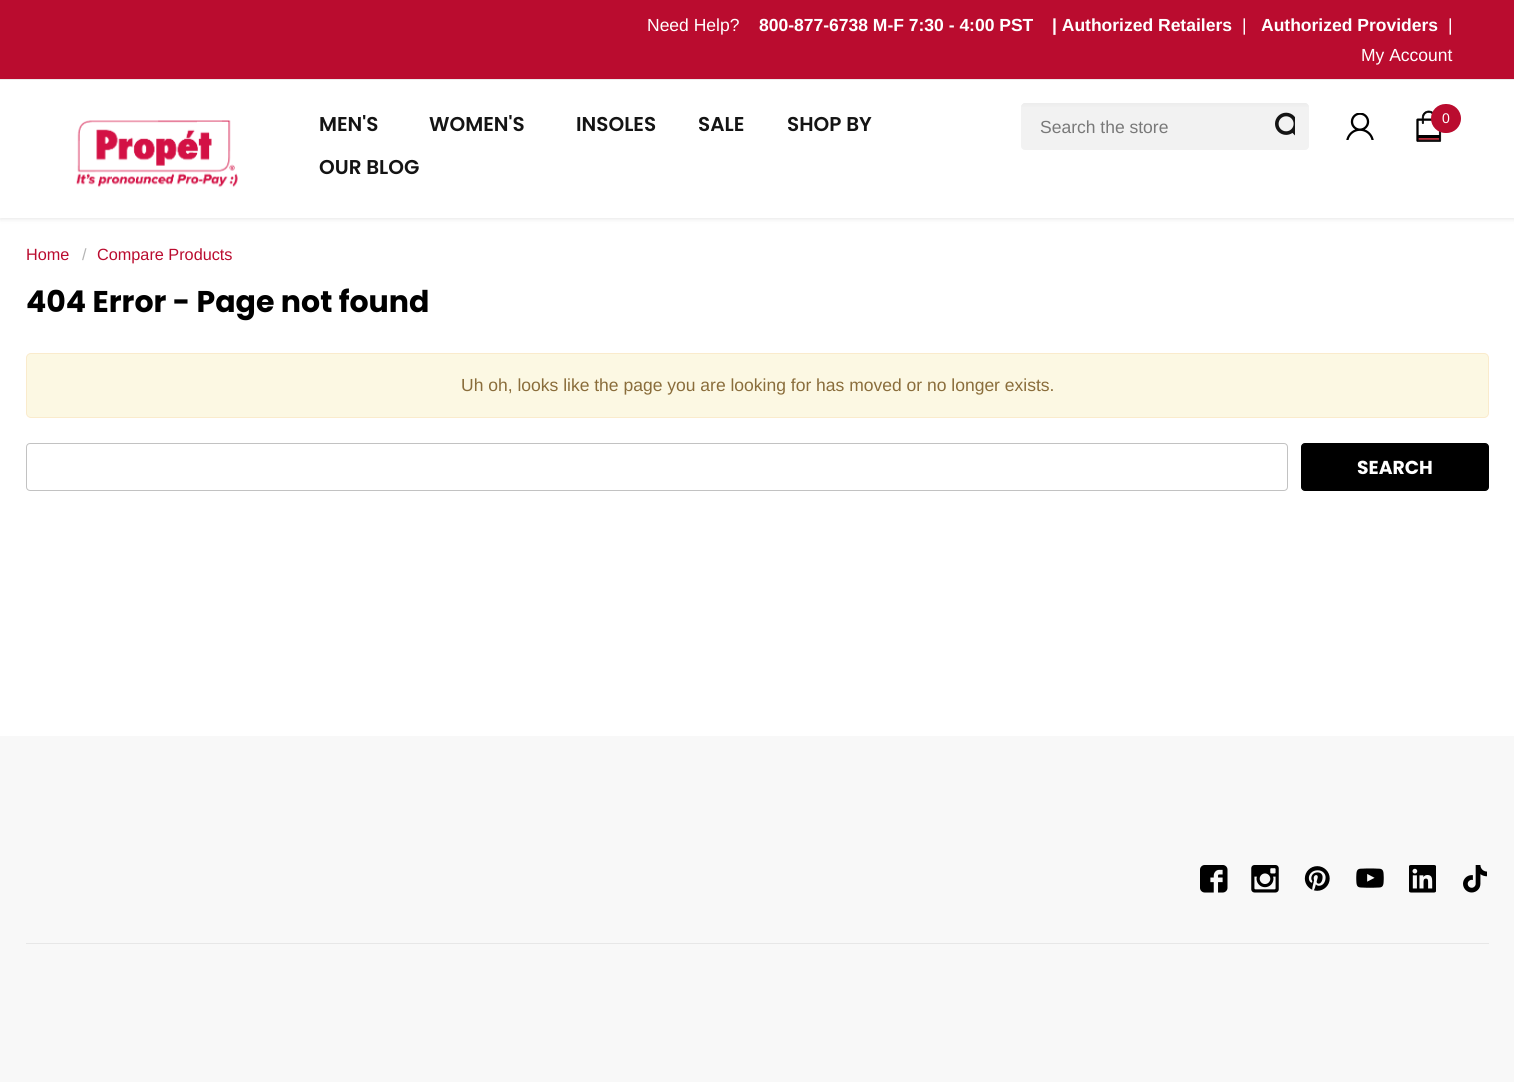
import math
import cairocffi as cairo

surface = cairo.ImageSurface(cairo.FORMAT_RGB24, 1514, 1082)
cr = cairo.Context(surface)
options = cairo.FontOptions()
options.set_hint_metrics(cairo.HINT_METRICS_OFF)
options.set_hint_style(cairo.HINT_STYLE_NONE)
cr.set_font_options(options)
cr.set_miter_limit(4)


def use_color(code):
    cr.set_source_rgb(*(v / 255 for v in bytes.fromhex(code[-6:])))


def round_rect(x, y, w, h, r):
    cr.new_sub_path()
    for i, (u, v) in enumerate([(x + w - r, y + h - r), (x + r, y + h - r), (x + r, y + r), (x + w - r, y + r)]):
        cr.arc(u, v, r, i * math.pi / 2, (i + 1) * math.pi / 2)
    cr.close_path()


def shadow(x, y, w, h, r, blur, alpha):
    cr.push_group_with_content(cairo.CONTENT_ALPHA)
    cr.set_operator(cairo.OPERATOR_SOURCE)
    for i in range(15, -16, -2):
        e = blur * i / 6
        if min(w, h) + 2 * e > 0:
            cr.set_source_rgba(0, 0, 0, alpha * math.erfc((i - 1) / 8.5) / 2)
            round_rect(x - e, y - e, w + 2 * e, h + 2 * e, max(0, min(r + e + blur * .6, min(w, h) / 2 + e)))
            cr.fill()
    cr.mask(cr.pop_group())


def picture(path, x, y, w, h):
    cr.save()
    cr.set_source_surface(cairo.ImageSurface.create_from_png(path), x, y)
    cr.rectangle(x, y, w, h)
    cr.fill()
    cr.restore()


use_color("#ffffff")
cr.paint()
cr.save()
cr.set_fill_rule(cairo.FILL_RULE_EVEN_ODD)
cr.new_path()
cr.move_to(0, 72)
cr.line_to(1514, 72)
cr.line_to(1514, 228)
cr.line_to(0, 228)
cr.close_path()
cr.move_to(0, 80)
cr.line_to(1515, 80)
cr.line_to(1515, 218)
cr.line_to(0, 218)
cr.close_path()
cr.clip()
use_color("#000000")
shadow(0, 81, 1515, 138, 0, 2.5, 0.1)
cr.restore()
use_color("#ba0c2f")
cr.rectangle(0, 0, 1514, 79)
cr.fill()
use_color("#ebebeb")
cr.rectangle(0, 79, 1514, 1)
cr.fill()
cr.select_font_face("Arimo")
cr.set_font_size(17.5)
use_color("#ffffff")
cr.move_to(647, 31)
cr.show_text("Need Help?")
cr.select_font_face("Arimo", cairo.FONT_SLANT_NORMAL, cairo.FONT_WEIGHT_BOLD)
cr.move_to(759, 31)
cr.show_text("800-877-6738 M-F 7:30 - 4:00 PST")
cr.move_to(1052, 31)
cr.show_text("| Authorized Retailers")
cr.select_font_face("Arimo")
cr.move_to(1242, 31)
cr.show_text("|")
cr.select_font_face("Arimo", cairo.FONT_SLANT_NORMAL, cairo.FONT_WEIGHT_BOLD)
cr.move_to(1261, 31)
cr.show_text("Authorized Providers")
cr.select_font_face("Arimo")
cr.move_to(1448, 31)
cr.show_text("|")
cr.move_to(1361, 61)
cr.show_text("My Account")
picture("img1.png", 76, 120, 162, 68)
cr.select_font_face("Poppins SemiBold")
cr.set_font_size(20)
use_color("#141414")
cr.move_to(319, 131)
cr.show_text("MEN'S")
cr.move_to(429, 131)
cr.show_text("WOMEN'S")
cr.move_to(576, 131)
cr.show_text("INSOLES")
cr.move_to(698, 131)
cr.show_text("SALE")
cr.move_to(787, 131)
cr.show_text("SHOP BY")
cr.move_to(319, 174)
cr.show_text("OUR BLOG")
picture("img2.png", 1346, 113, 28, 27)
use_color("#ba2e3c")
cr.rectangle(1418, 138, 22, 2)
cr.fill()
use_color("#000000")
cr.rectangle(1418, 135, 22, 3)
cr.fill()
picture("img3.png", 1416, 110, 26, 32)
use_color("#ba0c2f")
round_rect(1431, 104, 30, 29, 14.5)
cr.fill()
cr.select_font_face("Arimo")
cr.set_font_size(14)
use_color("#ffffff")
cr.move_to(1442, 123)
cr.show_text("0")
use_color("#f2f2f2")
round_rect(1021, 103, 288, 47, 4)
cr.fill()
gradient = cairo.LinearGradient(1165, 102, 1165, 108)
gradient.add_color_stop_rgba(0, 0.922, 0.922, 0.922, 1)
gradient.add_color_stop_rgba(1, 0.922, 0.922, 0.922, 0)
cr.set_source(gradient)
cr.new_path()
cr.move_to(1025, 103)
cr.line_to(1305, 103)
cr.curve_to(1307, 103, 1309, 105, 1309, 107)
cr.line_to(1309, 108)
cr.line_to(1021, 108)
cr.line_to(1021, 107)
cr.curve_to(1021, 105, 1023, 103, 1025, 103)
cr.close_path()
cr.fill()
cr.set_font_size(17.5)
use_color("#797979")
cr.move_to(1040, 133)
cr.show_text("Search the store")
picture("img4.png", 1275, 112, 20, 24)
cr.set_font_size(16.25)
use_color("#ba0c2f")
cr.move_to(26, 260)
cr.show_text("Home")
use_color("#b4b4b4")
cr.move_to(82, 260)
cr.show_text("/")
use_color("#ba0c2f")
cr.move_to(97, 260)
cr.show_text("Compare Products")
cr.select_font_face("Poppins", cairo.FONT_SLANT_NORMAL, cairo.FONT_WEIGHT_BOLD)
cr.set_font_size(30)
use_color("#000000")
cr.move_to(26, 312)
cr.show_text("404 Error - Page not found")
use_color("#fcf8e3")
round_rect(26.5, 353.5, 1462, 64, 4.5)
cr.fill_preserve()
use_color("#faebcc")
cr.set_line_width(1)
cr.stroke()
cr.select_font_face("Arimo")
cr.set_font_size(17.5)
use_color("#8a6d3b")
cr.move_to(461, 391)
cr.show_text("Uh oh, looks like the page you are looking for has moved or no longer exists.")
round_rect(26.5, 443.5, 1261, 47, 3.5)
use_color("#c2c2c2")
cr.stroke()
use_color("#000000")
round_rect(1301.5, 443.5, 187, 47, 3.5)
cr.fill_preserve()
cr.stroke()
cr.select_font_face("Poppins", cairo.FONT_SLANT_NORMAL, cairo.FONT_WEIGHT_BOLD)
cr.set_font_size(18.75)
use_color("#ffffff")
cr.move_to(1357, 474)
cr.show_text("SEARCH")
use_color("#f8f8f8")
cr.rectangle(0, 736, 1514, 346)
cr.fill()
use_color("#e7e7e7")
cr.rectangle(26, 943, 1463, 1)
cr.fill()
picture("img5.png", 1200, 865, 28, 28)
picture("img6.png", 1251, 865, 28, 28)
picture("img7.png", 1304, 866, 26, 25)
picture("img8.png", 1356, 868, 28, 20)
picture("img9.png", 1409, 865, 27, 28)
picture("img10.png", 1463, 865, 24, 28)
surface.write_to_png("result.png")
